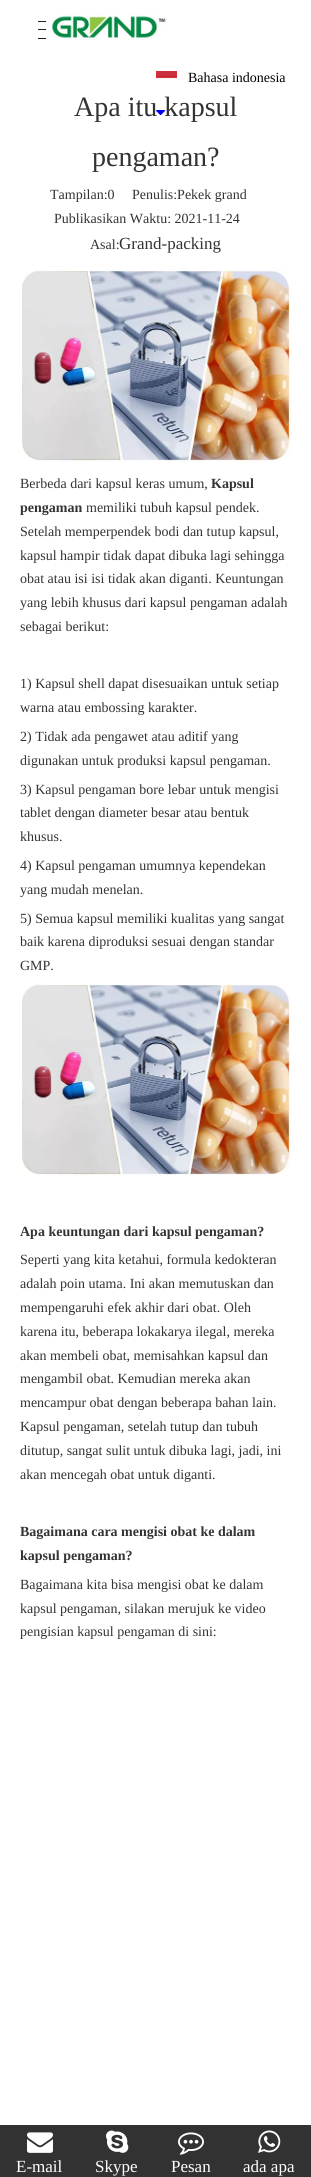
import math
import cairocffi as cairo

surface = cairo.ImageSurface(cairo.FORMAT_RGB24, 311, 2177)
cr = cairo.Context(surface)
options = cairo.FontOptions()
options.set_hint_metrics(cairo.HINT_METRICS_OFF)
options.set_hint_style(cairo.HINT_STYLE_NONE)
cr.set_font_options(options)
cr.set_miter_limit(4)


def use_color(code):
    cr.set_source_rgb(*(v / 255 for v in bytes.fromhex(code[-6:])))


def picture(path, x, y, w, h):
    cr.save()
    cr.set_source_surface(cairo.ImageSurface.create_from_png(path), x, y)
    cr.rectangle(x, y, w, h)
    cr.fill()
    cr.restore()


use_color("#ffffff")
cr.paint()
use_color("#1c1c1c")
cr.rectangle(38, 21, 8, 1)
cr.fill()
cr.rectangle(38, 29, 8, 1)
cr.fill()
cr.rectangle(38, 38, 8, 1)
cr.fill()
picture("img1.png", 46, 14, 121, 25)
picture("img2.png", 156, 71, 21, 8)
cr.select_font_face("Liberation Serif")
cr.set_font_size(14)
use_color("#000000")
cr.move_to(188, 82)
cr.show_text("Bahasa indonesia")
cr.set_font_size(28)
use_color("#333333")
cr.move_to(74, 116)
cr.show_text("Apa itu kapsul")
picture("img3.png", 156, 110, 10, 6)
cr.move_to(92, 166)
cr.show_text("pengaman?")
cr.set_font_size(14)
cr.move_to(50, 199)
cr.show_text("Tampilan:0")
cr.move_to(132, 199)
cr.show_text("Penulis:Pekek grand")
cr.move_to(54, 223)
cr.show_text("Publikasikan Waktu: 2021-11-24")
cr.move_to(90, 249)
cr.show_text("Asal:")
cr.set_font_size(17)
cr.move_to(119, 249)
cr.show_text("Grand-packing")
picture("img4.png", 22, 269, 269, 193)
cr.set_font_size(14)
cr.move_to(20, 488)
cr.show_text("Berbeda dari kapsul keras umum,")
cr.select_font_face("Liberation Serif", cairo.FONT_SLANT_NORMAL, cairo.FONT_WEIGHT_BOLD)
cr.move_to(211, 488)
cr.show_text("Kapsul")
cr.move_to(20, 512)
cr.show_text("pengaman")
cr.select_font_face("Liberation Serif")
cr.move_to(86, 512)
cr.show_text("memiliki tubuh kapsul pendek.")
cr.move_to(20, 536)
cr.show_text("Setelah memperpendek bodi dan tutup kapsul,")
cr.move_to(20, 560)
cr.show_text("kapsul hampir tidak dapat dibuka lagi sehingga")
cr.move_to(20, 583)
cr.show_text("obat atau isi isi tidak akan diganti. Keuntungan")
cr.move_to(20, 607)
cr.show_text("yang lebih khusus dari kapsul pengaman adalah")
cr.move_to(20, 631)
cr.show_text("sebagai berikut:")
cr.move_to(20, 688)
cr.show_text("1) Kapsul shell dapat disesuaikan untuk setiap")
cr.move_to(20, 712)
cr.show_text("warna atau embossing karakter.")
cr.move_to(20, 741)
cr.show_text("2) Tidak ada pengawet atau aditif yang")
cr.move_to(20, 765)
cr.show_text("digunakan untuk produksi kapsul pengaman.")
cr.move_to(20, 794)
cr.show_text("3) Kapsul pengaman bore lebar untuk mengisi")
cr.move_to(20, 817)
cr.show_text("tablet dengan diameter besar atau bentuk")
cr.move_to(20, 841)
cr.show_text("khusus.")
cr.move_to(20, 870)
cr.show_text("4) Kapsul pengaman umumnya kependekan")
cr.move_to(20, 894)
cr.show_text("yang mudah menelan.")
cr.move_to(20, 923)
cr.show_text("5) Semua kapsul memiliki kualitas yang sangat")
cr.move_to(20, 946)
cr.show_text("baik karena diproduksi sesuai dengan standar")
cr.move_to(20, 970)
cr.show_text("GMP.")
picture("img4.png", 22, 983, 269, 193)
cr.select_font_face("Liberation Serif", cairo.FONT_SLANT_NORMAL, cairo.FONT_WEIGHT_BOLD)
cr.move_to(20, 1236)
cr.show_text("Apa keuntungan dari kapsul pengaman?")
cr.select_font_face("Liberation Serif")
cr.move_to(20, 1264)
cr.show_text("Seperti yang kita ketahui, formula kedokteran")
cr.move_to(20, 1288)
cr.show_text("adalah poin utama. Ini akan memutuskan dan")
cr.move_to(20, 1312)
cr.show_text("mempengaruhi efek akhir dari obat. Oleh")
cr.move_to(20, 1336)
cr.show_text("karena itu, beberapa lokakarya ilegal, mereka")
cr.move_to(20, 1360)
cr.show_text("akan membeli obat, memisahkan kapsul dan")
cr.move_to(20, 1383)
cr.show_text("mengambil obat. Kemudian mereka akan")
cr.move_to(20, 1407)
cr.show_text("mencampur obat dengan beberapa bahan lain.")
cr.move_to(20, 1431)
cr.show_text("Kapsul pengaman, setelah tutup dan tubuh")
cr.move_to(20, 1455)
cr.show_text("ditutup, sangat sulit untuk dibuka lagi, jadi, ini")
cr.move_to(20, 1479)
cr.show_text("akan mencegah obat untuk diganti.")
cr.select_font_face("Liberation Serif", cairo.FONT_SLANT_NORMAL, cairo.FONT_WEIGHT_BOLD)
cr.move_to(20, 1536)
cr.show_text("Bagaimana cara mengisi obat ke dalam")
cr.move_to(20, 1560)
cr.show_text("kapsul pengaman?")
cr.select_font_face("Liberation Serif")
cr.move_to(20, 1589)
cr.show_text("Bagaimana kita bisa mengisi obat ke dalam")
cr.move_to(20, 1613)
cr.show_text("kapsul pengaman, silakan merujuk ke video")
cr.move_to(20, 1636)
cr.show_text("pengisian kapsul pengaman di sini:")
use_color("#323232")
cr.rectangle(0, 2125, 311, 52)
cr.fill()
picture("img5.png", 27, 2132, 26, 21)
cr.set_font_size(17)
use_color("#ffffff")
cr.move_to(16, 2172)
cr.show_text("E-mail")
picture("img6.png", 106, 2130, 23, 23)
cr.move_to(95, 2172)
cr.show_text("Skype")
picture("img7.png", 178, 2132, 26, 23)
cr.move_to(171, 2172)
cr.show_text("Pesan")
picture("img8.png", 258, 2130, 23, 23)
cr.move_to(243, 2172)
cr.show_text("ada apa")
surface.write_to_png("result.png")
